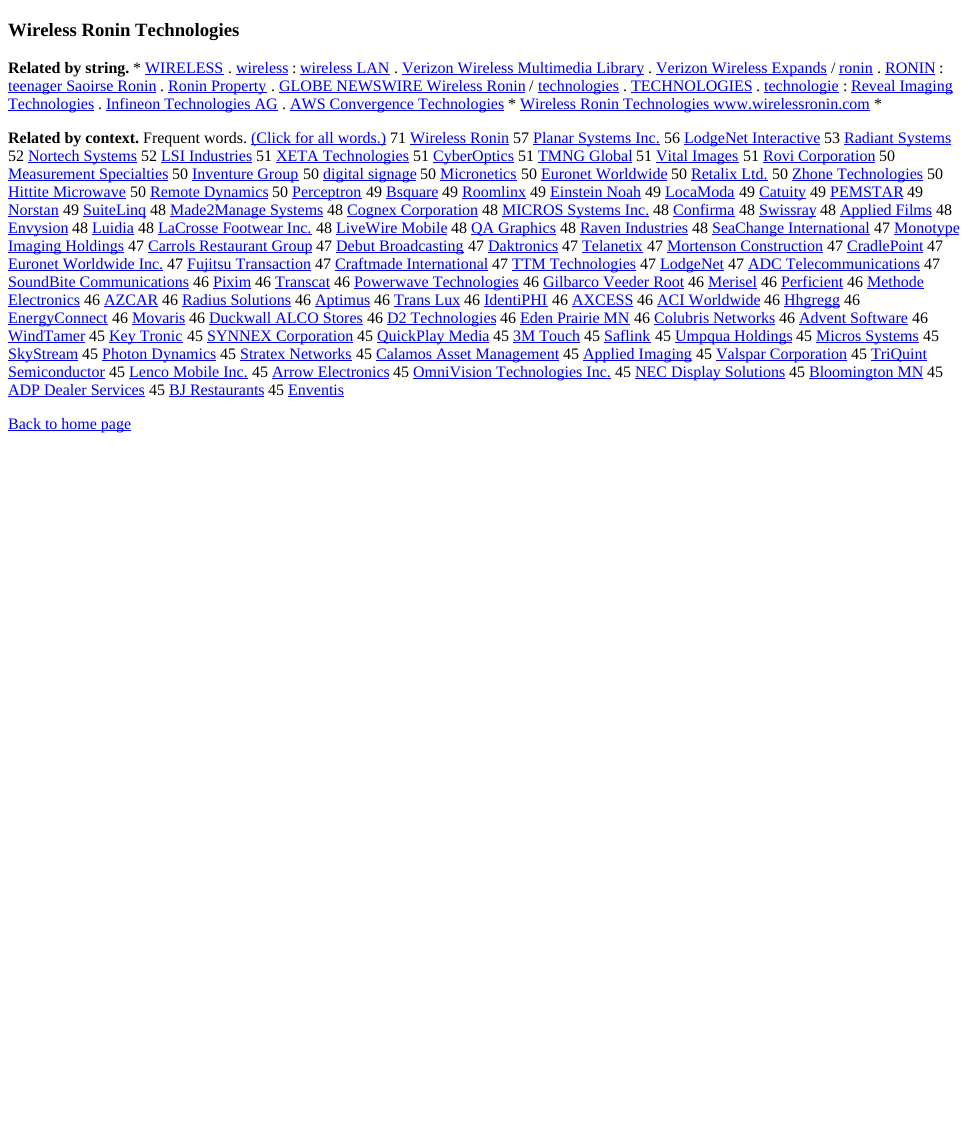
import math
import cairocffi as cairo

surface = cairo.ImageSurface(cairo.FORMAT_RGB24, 971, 1122)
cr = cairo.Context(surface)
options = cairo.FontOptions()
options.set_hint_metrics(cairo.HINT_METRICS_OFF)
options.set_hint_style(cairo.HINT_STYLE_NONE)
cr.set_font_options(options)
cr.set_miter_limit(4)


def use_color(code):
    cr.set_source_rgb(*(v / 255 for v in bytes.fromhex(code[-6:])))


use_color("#ffffff")
cr.paint()
cr.select_font_face("Liberation Serif", cairo.FONT_SLANT_NORMAL, cairo.FONT_WEIGHT_BOLD)
cr.set_font_size(18.75)
use_color("#000000")
cr.move_to(8, 36)
cr.show_text("Wireless Ronin Technologies")
cr.set_font_size(16)
cr.move_to(8, 73)
cr.show_text("Related by string.")
cr.select_font_face("Liberation Serif")
cr.move_to(133, 73)
cr.show_text("*")
use_color("#0000ee")
cr.move_to(145, 73)
cr.show_text("WIRELESS")
cr.rectangle(145, 74, 79, 1)
cr.fill()
use_color("#000000")
cr.move_to(228, 73)
cr.show_text(".")
use_color("#0000ee")
cr.move_to(236, 73)
cr.show_text("wireless")
cr.rectangle(236, 74, 52, 1)
cr.fill()
use_color("#000000")
cr.move_to(292, 73)
cr.show_text(":")
use_color("#0000ee")
cr.move_to(300, 73)
cr.show_text("wireless LAN")
cr.rectangle(300, 74, 90, 1)
cr.fill()
use_color("#000000")
cr.move_to(394, 73)
cr.show_text(".")
use_color("#0000ee")
cr.rectangle(402, 74, 242, 1)
cr.fill()
cr.move_to(402, 73)
cr.show_text("Verizon Wireless Multimedia Library")
use_color("#000000")
cr.move_to(648, 73)
cr.show_text(".")
use_color("#0000ee")
cr.rectangle(656, 74, 171, 1)
cr.fill()
cr.move_to(656, 73)
cr.show_text("Verizon Wireless Expands")
use_color("#000000")
cr.move_to(831, 73)
cr.show_text("/")
use_color("#0000ee")
cr.move_to(839, 73)
cr.show_text("ronin")
cr.rectangle(839, 74, 34, 1)
cr.fill()
use_color("#000000")
cr.move_to(877, 73)
cr.show_text(".")
use_color("#0000ee")
cr.move_to(885, 73)
cr.show_text("RONIN")
cr.rectangle(885, 74, 50, 1)
cr.fill()
use_color("#000000")
cr.move_to(939, 73)
cr.show_text(":")
use_color("#0000ee")
cr.rectangle(8, 92, 148, 1)
cr.fill()
cr.move_to(8, 91)
cr.show_text("teenager Saoirse Ronin")
use_color("#000000")
cr.move_to(160, 91)
cr.show_text(".")
use_color("#0000ee")
cr.rectangle(168, 92, 99, 1)
cr.fill()
cr.move_to(168, 91)
cr.show_text("Ronin Property")
use_color("#000000")
cr.move_to(271, 91)
cr.show_text(".")
use_color("#0000ee")
cr.move_to(279, 91)
cr.show_text("GLOBE NEWSWIRE Wireless Ronin")
cr.rectangle(279, 92, 246, 1)
cr.fill()
use_color("#000000")
cr.move_to(529, 91)
cr.show_text("/")
use_color("#0000ee")
cr.rectangle(538, 92, 81, 1)
cr.fill()
cr.move_to(538, 91)
cr.show_text("technologies")
use_color("#000000")
cr.move_to(623, 91)
cr.show_text(".")
use_color("#0000ee")
cr.move_to(631, 91)
cr.show_text("TECHNOLOGIES")
cr.rectangle(631, 92, 121, 1)
cr.fill()
use_color("#000000")
cr.move_to(756, 91)
cr.show_text(".")
use_color("#0000ee")
cr.rectangle(764, 92, 75, 1)
cr.fill()
cr.move_to(764, 91)
cr.show_text("technologie")
use_color("#000000")
cr.move_to(843, 91)
cr.show_text(":")
use_color("#0000ee")
cr.rectangle(851, 92, 102, 1)
cr.fill()
cr.move_to(851, 91)
cr.show_text("Reveal Imaging")
cr.rectangle(8, 110, 86, 1)
cr.fill()
cr.move_to(8, 109)
cr.show_text("Technologies")
cr.rectangle(106, 110, 172, 1)
cr.fill()
cr.move_to(106, 109)
cr.show_text("Infineon Technologies AG")
cr.rectangle(290, 110, 214, 1)
cr.fill()
cr.move_to(290, 109)
cr.show_text("AWS Convergence Technologies")
use_color("#000000")
cr.move_to(508, 109)
cr.show_text("*")
use_color("#0000ee")
cr.rectangle(520, 110, 350, 1)
cr.fill()
cr.move_to(520, 109)
cr.show_text("Wireless Ronin Technologies www.wirelessronin.com")
use_color("#000000")
cr.move_to(874, 109)
cr.show_text("*")
cr.move_to(98, 109)
cr.show_text(".")
cr.move_to(282, 109)
cr.show_text(".")
cr.select_font_face("Liberation Serif", cairo.FONT_SLANT_NORMAL, cairo.FONT_WEIGHT_BOLD)
cr.move_to(8, 143)
cr.show_text("Related by context.")
cr.select_font_face("Liberation Serif")
cr.move_to(143, 143)
cr.show_text("Frequent words.")
use_color("#0000ee")
cr.rectangle(251, 144, 135, 1)
cr.fill()
cr.move_to(251, 143)
cr.show_text("(Click for all words.)")
use_color("#000000")
cr.move_to(390, 143)
cr.show_text("71")
use_color("#0000ee")
cr.move_to(410, 143)
cr.show_text("Wireless Ronin")
cr.rectangle(410, 144, 99, 1)
cr.fill()
use_color("#000000")
cr.move_to(513, 143)
cr.show_text("57")
use_color("#0000ee")
cr.rectangle(533, 144, 127, 1)
cr.fill()
cr.move_to(533, 143)
cr.show_text("Planar Systems Inc.")
use_color("#000000")
cr.move_to(664, 143)
cr.show_text("56")
use_color("#0000ee")
cr.rectangle(684, 144, 136, 1)
cr.fill()
cr.move_to(684, 143)
cr.show_text("LodgeNet Interactive")
use_color("#000000")
cr.move_to(824, 143)
cr.show_text("53")
use_color("#0000ee")
cr.rectangle(844, 144, 107, 1)
cr.fill()
cr.move_to(844, 143)
cr.show_text("Radiant Systems")
use_color("#000000")
cr.move_to(8, 161)
cr.show_text("52")
use_color("#0000ee")
cr.rectangle(28, 162, 109, 1)
cr.fill()
cr.move_to(28, 161)
cr.show_text("Nortech Systems")
use_color("#000000")
cr.move_to(141, 161)
cr.show_text("52")
use_color("#0000ee")
cr.move_to(161, 161)
cr.show_text("LSI Industries")
cr.rectangle(161, 162, 91, 1)
cr.fill()
use_color("#000000")
cr.move_to(256, 161)
cr.show_text("51")
use_color("#0000ee")
cr.rectangle(276, 162, 133, 1)
cr.fill()
cr.move_to(276, 161)
cr.show_text("XETA Technologies")
use_color("#000000")
cr.move_to(413, 161)
cr.show_text("51")
use_color("#0000ee")
cr.rectangle(433, 162, 81, 1)
cr.fill()
cr.move_to(433, 161)
cr.show_text("CyberOptics")
use_color("#000000")
cr.move_to(518, 161)
cr.show_text("51")
use_color("#0000ee")
cr.move_to(538, 161)
cr.show_text("TMNG Global")
cr.rectangle(538, 162, 94, 1)
cr.fill()
use_color("#000000")
cr.move_to(636, 161)
cr.show_text("51")
use_color("#0000ee")
cr.rectangle(656, 162, 83, 1)
cr.fill()
cr.move_to(656, 161)
cr.show_text("Vital Images")
use_color("#000000")
cr.move_to(743, 161)
cr.show_text("51")
use_color("#0000ee")
cr.rectangle(763, 162, 112, 1)
cr.fill()
cr.move_to(763, 161)
cr.show_text("Rovi Corporation")
use_color("#000000")
cr.move_to(879, 161)
cr.show_text("50")
use_color("#0000ee")
cr.rectangle(8, 180, 160, 1)
cr.fill()
cr.move_to(8, 179)
cr.show_text("Measurement Specialties")
use_color("#000000")
cr.move_to(172, 179)
cr.show_text("50")
use_color("#0000ee")
cr.rectangle(192, 180, 107, 1)
cr.fill()
cr.move_to(192, 179)
cr.show_text("Inventure Group")
use_color("#000000")
cr.move_to(303, 179)
cr.show_text("50")
use_color("#0000ee")
cr.rectangle(323, 180, 93, 1)
cr.fill()
cr.move_to(323, 179)
cr.show_text("digital signage")
use_color("#000000")
cr.move_to(420, 179)
cr.show_text("50")
use_color("#0000ee")
cr.move_to(440, 179)
cr.show_text("Micronetics")
cr.rectangle(440, 180, 77, 1)
cr.fill()
use_color("#000000")
cr.move_to(521, 179)
cr.show_text("50")
use_color("#0000ee")
cr.move_to(541, 179)
cr.show_text("Euronet Worldwide")
cr.rectangle(541, 180, 126, 1)
cr.fill()
use_color("#000000")
cr.move_to(671, 179)
cr.show_text("50")
use_color("#0000ee")
cr.move_to(691, 179)
cr.show_text("Retalix Ltd.")
cr.rectangle(691, 180, 77, 1)
cr.fill()
use_color("#000000")
cr.move_to(772, 179)
cr.show_text("50")
use_color("#0000ee")
cr.rectangle(792, 180, 131, 1)
cr.fill()
cr.move_to(792, 179)
cr.show_text("Zhone Technologies")
use_color("#000000")
cr.move_to(927, 179)
cr.show_text("50")
use_color("#0000ee")
cr.move_to(8, 197)
cr.show_text("Hittite Microwave")
cr.rectangle(8, 198, 118, 1)
cr.fill()
use_color("#000000")
cr.move_to(130, 197)
cr.show_text("50")
use_color("#0000ee")
cr.rectangle(150, 198, 118, 1)
cr.fill()
cr.move_to(150, 197)
cr.show_text("Remote Dynamics")
use_color("#000000")
cr.move_to(272, 197)
cr.show_text("50")
use_color("#0000ee")
cr.rectangle(292, 198, 70, 1)
cr.fill()
cr.move_to(292, 197)
cr.show_text("Perceptron")
use_color("#000000")
cr.move_to(366, 197)
cr.show_text("49")
use_color("#0000ee")
cr.rectangle(386, 198, 52, 1)
cr.fill()
cr.move_to(386, 197)
cr.show_text("Bsquare")
use_color("#000000")
cr.move_to(442, 197)
cr.show_text("49")
use_color("#0000ee")
cr.move_to(462, 197)
cr.show_text("Roomlinx")
cr.rectangle(462, 198, 64, 1)
cr.fill()
use_color("#000000")
cr.move_to(530, 197)
cr.show_text("49")
use_color("#0000ee")
cr.move_to(550, 197)
cr.show_text("Einstein Noah")
cr.rectangle(550, 198, 91, 1)
cr.fill()
use_color("#000000")
cr.move_to(645, 197)
cr.show_text("49")
use_color("#0000ee")
cr.move_to(665, 197)
cr.show_text("LocaModa")
cr.rectangle(665, 198, 70, 1)
cr.fill()
use_color("#000000")
cr.move_to(739, 197)
cr.show_text("49")
use_color("#0000ee")
cr.rectangle(759, 198, 47, 1)
cr.fill()
cr.move_to(759, 197)
cr.show_text("Catuity")
use_color("#000000")
cr.move_to(810, 197)
cr.show_text("49")
use_color("#0000ee")
cr.move_to(830, 197)
cr.show_text("PEMSTAR")
cr.rectangle(830, 198, 73, 1)
cr.fill()
use_color("#000000")
cr.move_to(907, 197)
cr.show_text("49")
use_color("#0000ee")
cr.move_to(8, 215)
cr.show_text("Norstan")
cr.rectangle(8, 216, 51, 1)
cr.fill()
use_color("#000000")
cr.move_to(63, 215)
cr.show_text("49")
use_color("#0000ee")
cr.rectangle(83, 216, 63, 1)
cr.fill()
cr.move_to(83, 215)
cr.show_text("SuiteLinq")
use_color("#000000")
cr.move_to(150, 215)
cr.show_text("48")
use_color("#0000ee")
cr.rectangle(170, 216, 153, 1)
cr.fill()
cr.move_to(170, 215)
cr.show_text("Made2Manage Systems")
use_color("#000000")
cr.move_to(327, 215)
cr.show_text("48")
use_color("#0000ee")
cr.rectangle(347, 216, 131, 1)
cr.fill()
cr.move_to(347, 215)
cr.show_text("Cognex Corporation")
use_color("#000000")
cr.move_to(482, 215)
cr.show_text("48")
use_color("#0000ee")
cr.rectangle(502, 216, 147, 1)
cr.fill()
cr.move_to(502, 215)
cr.show_text("MICROS Systems Inc.")
use_color("#000000")
cr.move_to(653, 215)
cr.show_text("48")
use_color("#0000ee")
cr.move_to(673, 215)
cr.show_text("Confirma")
cr.rectangle(673, 216, 62, 1)
cr.fill()
use_color("#000000")
cr.move_to(739, 215)
cr.show_text("48")
use_color("#0000ee")
cr.rectangle(759, 216, 57, 1)
cr.fill()
cr.move_to(759, 215)
cr.show_text("Swissray")
use_color("#000000")
cr.move_to(820, 215)
cr.show_text("48")
use_color("#0000ee")
cr.rectangle(840, 216, 92, 1)
cr.fill()
cr.move_to(840, 215)
cr.show_text("Applied Films")
use_color("#000000")
cr.move_to(936, 215)
cr.show_text("48")
use_color("#0000ee")
cr.rectangle(8, 234, 60, 1)
cr.fill()
cr.move_to(8, 233)
cr.show_text("Envysion")
use_color("#000000")
cr.move_to(72, 233)
cr.show_text("48")
use_color("#0000ee")
cr.move_to(92, 233)
cr.show_text("Luidia")
cr.rectangle(92, 234, 42, 1)
cr.fill()
use_color("#000000")
cr.move_to(138, 233)
cr.show_text("48")
use_color("#0000ee")
cr.move_to(158, 233)
cr.show_text("LaCrosse Footwear Inc.")
cr.rectangle(158, 234, 154, 1)
cr.fill()
use_color("#000000")
cr.move_to(316, 233)
cr.show_text("48")
use_color("#0000ee")
cr.move_to(336, 233)
cr.show_text("LiveWire Mobile")
cr.rectangle(336, 234, 111, 1)
cr.fill()
use_color("#000000")
cr.move_to(451, 233)
cr.show_text("48")
use_color("#0000ee")
cr.rectangle(471, 234, 85, 1)
cr.fill()
cr.move_to(471, 233)
cr.show_text("QA Graphics")
use_color("#000000")
cr.move_to(560, 233)
cr.show_text("48")
use_color("#0000ee")
cr.move_to(580, 233)
cr.show_text("Raven Industries")
cr.rectangle(580, 234, 108, 1)
cr.fill()
use_color("#000000")
cr.move_to(692, 233)
cr.show_text("48")
use_color("#0000ee")
cr.rectangle(712, 234, 158, 1)
cr.fill()
cr.move_to(712, 233)
cr.show_text("SeaChange International")
use_color("#000000")
cr.move_to(874, 233)
cr.show_text("47")
use_color("#0000ee")
cr.rectangle(894, 234, 65, 1)
cr.fill()
cr.move_to(894, 233)
cr.show_text("Monotype")
cr.rectangle(8, 252, 116, 1)
cr.fill()
cr.move_to(8, 251)
cr.show_text("Imaging Holdings")
use_color("#000000")
cr.move_to(128, 251)
cr.show_text("47")
use_color("#0000ee")
cr.rectangle(148, 252, 164, 1)
cr.fill()
cr.move_to(148, 251)
cr.show_text("Carrols Restaurant Group")
use_color("#000000")
cr.move_to(316, 251)
cr.show_text("47")
use_color("#0000ee")
cr.rectangle(336, 252, 128, 1)
cr.fill()
cr.move_to(336, 251)
cr.show_text("Debut Broadcasting")
use_color("#000000")
cr.move_to(468, 251)
cr.show_text("47")
use_color("#0000ee")
cr.move_to(488, 251)
cr.show_text("Daktronics")
cr.rectangle(488, 252, 70, 1)
cr.fill()
use_color("#000000")
cr.move_to(562, 251)
cr.show_text("47")
use_color("#0000ee")
cr.move_to(582, 251)
cr.show_text("Telanetix")
cr.rectangle(582, 252, 61, 1)
cr.fill()
use_color("#000000")
cr.move_to(647, 251)
cr.show_text("47")
use_color("#0000ee")
cr.move_to(667, 251)
cr.show_text("Mortenson Construction")
cr.rectangle(667, 252, 156, 1)
cr.fill()
use_color("#000000")
cr.move_to(827, 251)
cr.show_text("47")
use_color("#0000ee")
cr.move_to(847, 251)
cr.show_text("CradlePoint")
cr.rectangle(847, 252, 76, 1)
cr.fill()
use_color("#000000")
cr.move_to(927, 251)
cr.show_text("47")
use_color("#0000ee")
cr.move_to(8, 269)
cr.show_text("Euronet Worldwide Inc.")
cr.rectangle(8, 270, 155, 1)
cr.fill()
use_color("#000000")
cr.move_to(167, 269)
cr.show_text("47")
use_color("#0000ee")
cr.rectangle(187, 270, 124, 1)
cr.fill()
cr.move_to(187, 269)
cr.show_text("Fujitsu Transaction")
use_color("#000000")
cr.move_to(315, 269)
cr.show_text("47")
use_color("#0000ee")
cr.move_to(335, 269)
cr.show_text("Craftmade International")
cr.rectangle(335, 270, 153, 1)
cr.fill()
use_color("#000000")
cr.move_to(492, 269)
cr.show_text("47")
use_color("#0000ee")
cr.rectangle(512, 270, 124, 1)
cr.fill()
cr.move_to(512, 269)
cr.show_text("TTM Technologies")
use_color("#000000")
cr.move_to(640, 269)
cr.show_text("47")
use_color("#0000ee")
cr.rectangle(660, 270, 64, 1)
cr.fill()
cr.move_to(660, 269)
cr.show_text("LodgeNet")
use_color("#000000")
cr.move_to(728, 269)
cr.show_text("47")
use_color("#0000ee")
cr.move_to(748, 269)
cr.show_text("ADC Telecommunications")
cr.rectangle(748, 270, 172, 1)
cr.fill()
use_color("#000000")
cr.move_to(924, 269)
cr.show_text("47")
use_color("#0000ee")
cr.move_to(8, 287)
cr.show_text("SoundBite Communications")
cr.rectangle(8, 288, 181, 1)
cr.fill()
use_color("#000000")
cr.move_to(193, 287)
cr.show_text("46")
use_color("#0000ee")
cr.move_to(213, 287)
cr.show_text("Pixim")
cr.rectangle(213, 288, 38, 1)
cr.fill()
use_color("#000000")
cr.move_to(255, 287)
cr.show_text("46")
use_color("#0000ee")
cr.move_to(275, 287)
cr.show_text("Transcat")
cr.rectangle(275, 288, 55, 1)
cr.fill()
use_color("#000000")
cr.move_to(334, 287)
cr.show_text("46")
use_color("#0000ee")
cr.rectangle(354, 288, 165, 1)
cr.fill()
cr.move_to(354, 287)
cr.show_text("Powerwave Technologies")
use_color("#000000")
cr.move_to(523, 287)
cr.show_text("46")
use_color("#0000ee")
cr.move_to(543, 287)
cr.show_text("Gilbarco Veeder Root")
cr.rectangle(543, 288, 141, 1)
cr.fill()
use_color("#000000")
cr.move_to(688, 287)
cr.show_text("46")
use_color("#0000ee")
cr.move_to(708, 287)
cr.show_text("Merisel")
cr.rectangle(708, 288, 49, 1)
cr.fill()
use_color("#000000")
cr.move_to(761, 287)
cr.show_text("46")
use_color("#0000ee")
cr.move_to(781, 287)
cr.show_text("Perficient")
cr.rectangle(781, 288, 62, 1)
cr.fill()
use_color("#000000")
cr.move_to(847, 287)
cr.show_text("46")
use_color("#0000ee")
cr.move_to(867, 287)
cr.show_text("Methode")
cr.rectangle(867, 288, 57, 1)
cr.fill()
cr.move_to(8, 305)
cr.show_text("Electronics")
cr.rectangle(8, 306, 72, 1)
cr.fill()
use_color("#000000")
cr.move_to(84, 305)
cr.show_text("46")
use_color("#0000ee")
cr.move_to(104, 305)
cr.show_text("AZCAR")
cr.rectangle(104, 306, 54, 1)
cr.fill()
use_color("#000000")
cr.move_to(162, 305)
cr.show_text("46")
use_color("#0000ee")
cr.move_to(182, 305)
cr.show_text("Radius Solutions")
cr.rectangle(182, 306, 109, 1)
cr.fill()
use_color("#000000")
cr.move_to(295, 305)
cr.show_text("46")
use_color("#0000ee")
cr.rectangle(315, 306, 55, 1)
cr.fill()
cr.move_to(315, 305)
cr.show_text("Aptimus")
use_color("#000000")
cr.move_to(374, 305)
cr.show_text("46")
use_color("#0000ee")
cr.move_to(394, 305)
cr.show_text("Trans Lux")
cr.rectangle(394, 306, 66, 1)
cr.fill()
use_color("#000000")
cr.move_to(464, 305)
cr.show_text("46")
use_color("#0000ee")
cr.move_to(484, 305)
cr.show_text("IdentiPHI")
cr.rectangle(484, 306, 64, 1)
cr.fill()
use_color("#000000")
cr.move_to(552, 305)
cr.show_text("46")
use_color("#0000ee")
cr.move_to(572, 305)
cr.show_text("AXCESS")
cr.rectangle(572, 306, 61, 1)
cr.fill()
use_color("#000000")
cr.move_to(637, 305)
cr.show_text("46")
use_color("#0000ee")
cr.move_to(657, 305)
cr.show_text("ACI Worldwide")
cr.rectangle(657, 306, 103, 1)
cr.fill()
use_color("#000000")
cr.move_to(764, 305)
cr.show_text("46")
use_color("#0000ee")
cr.rectangle(784, 306, 56, 1)
cr.fill()
cr.move_to(784, 305)
cr.show_text("Hhgregg")
use_color("#000000")
cr.move_to(844, 305)
cr.show_text("46")
use_color("#0000ee")
cr.rectangle(8, 324, 100, 1)
cr.fill()
cr.move_to(8, 323)
cr.show_text("EnergyConnect")
use_color("#000000")
cr.move_to(112, 323)
cr.show_text("46")
use_color("#0000ee")
cr.move_to(132, 323)
cr.show_text("Movaris")
cr.rectangle(132, 324, 53, 1)
cr.fill()
use_color("#000000")
cr.move_to(189, 323)
cr.show_text("46")
use_color("#0000ee")
cr.move_to(209, 323)
cr.show_text("Duckwall ALCO Stores")
cr.rectangle(209, 324, 154, 1)
cr.fill()
use_color("#000000")
cr.move_to(367, 323)
cr.show_text("46")
use_color("#0000ee")
cr.rectangle(387, 324, 109, 1)
cr.fill()
cr.move_to(387, 323)
cr.show_text("D2 Technologies")
use_color("#000000")
cr.move_to(500, 323)
cr.show_text("46")
use_color("#0000ee")
cr.move_to(520, 323)
cr.show_text("Eden Prairie MN")
cr.rectangle(520, 324, 110, 1)
cr.fill()
use_color("#000000")
cr.move_to(634, 323)
cr.show_text("46")
use_color("#0000ee")
cr.move_to(654, 323)
cr.show_text("Colubris Networks")
cr.rectangle(654, 324, 121, 1)
cr.fill()
use_color("#000000")
cr.move_to(779, 323)
cr.show_text("46")
use_color("#0000ee")
cr.move_to(799, 323)
cr.show_text("Advent Software")
cr.rectangle(799, 324, 109, 1)
cr.fill()
use_color("#000000")
cr.move_to(912, 323)
cr.show_text("46")
use_color("#0000ee")
cr.move_to(8, 341)
cr.show_text("WindTamer")
cr.rectangle(8, 342, 77, 1)
cr.fill()
use_color("#000000")
cr.move_to(89, 341)
cr.show_text("45")
use_color("#0000ee")
cr.rectangle(109, 342, 74, 1)
cr.fill()
cr.move_to(109, 341)
cr.show_text("Key Tronic")
use_color("#000000")
cr.move_to(187, 341)
cr.show_text("45")
use_color("#0000ee")
cr.rectangle(207, 342, 146, 1)
cr.fill()
cr.move_to(207, 341)
cr.show_text("SYNNEX Corporation")
use_color("#000000")
cr.move_to(357, 341)
cr.show_text("45")
use_color("#0000ee")
cr.rectangle(377, 342, 112, 1)
cr.fill()
cr.move_to(377, 341)
cr.show_text("QuickPlay Media")
use_color("#000000")
cr.move_to(493, 341)
cr.show_text("45")
use_color("#0000ee")
cr.move_to(513, 341)
cr.show_text("3M Touch")
cr.rectangle(513, 342, 67, 1)
cr.fill()
use_color("#000000")
cr.move_to(584, 341)
cr.show_text("45")
use_color("#0000ee")
cr.move_to(604, 341)
cr.show_text("Saflink")
cr.rectangle(604, 342, 47, 1)
cr.fill()
use_color("#000000")
cr.move_to(655, 341)
cr.show_text("45")
use_color("#0000ee")
cr.rectangle(675, 342, 117, 1)
cr.fill()
cr.move_to(675, 341)
cr.show_text("Umpqua Holdings")
use_color("#000000")
cr.move_to(796, 341)
cr.show_text("45")
use_color("#0000ee")
cr.rectangle(816, 342, 103, 1)
cr.fill()
cr.move_to(816, 341)
cr.show_text("Micros Systems")
use_color("#000000")
cr.move_to(923, 341)
cr.show_text("45")
use_color("#0000ee")
cr.rectangle(8, 360, 70, 1)
cr.fill()
cr.move_to(8, 359)
cr.show_text("SkyStream")
use_color("#000000")
cr.move_to(82, 359)
cr.show_text("45")
use_color("#0000ee")
cr.rectangle(102, 360, 114, 1)
cr.fill()
cr.move_to(102, 359)
cr.show_text("Photon Dynamics")
use_color("#000000")
cr.move_to(220, 359)
cr.show_text("45")
use_color("#0000ee")
cr.move_to(240, 359)
cr.show_text("Stratex Networks")
cr.rectangle(240, 360, 112, 1)
cr.fill()
use_color("#000000")
cr.move_to(356, 359)
cr.show_text("45")
use_color("#0000ee")
cr.rectangle(376, 360, 183, 1)
cr.fill()
cr.move_to(376, 359)
cr.show_text("Calamos Asset Management")
use_color("#000000")
cr.move_to(563, 359)
cr.show_text("45")
use_color("#0000ee")
cr.rectangle(583, 360, 109, 1)
cr.fill()
cr.move_to(583, 359)
cr.show_text("Applied Imaging")
use_color("#000000")
cr.move_to(696, 359)
cr.show_text("45")
use_color("#0000ee")
cr.rectangle(716, 360, 131, 1)
cr.fill()
cr.move_to(716, 359)
cr.show_text("Valspar Corporation")
use_color("#000000")
cr.move_to(851, 359)
cr.show_text("45")
use_color("#0000ee")
cr.rectangle(871, 360, 56, 1)
cr.fill()
cr.move_to(871, 359)
cr.show_text("TriQuint")
cr.move_to(8, 377)
cr.show_text("Semiconductor")
cr.rectangle(8, 378, 97, 1)
cr.fill()
use_color("#000000")
cr.move_to(109, 377)
cr.show_text("45")
use_color("#0000ee")
cr.move_to(129, 377)
cr.show_text("Lenco Mobile Inc.")
cr.rectangle(129, 378, 119, 1)
cr.fill()
use_color("#000000")
cr.move_to(252, 377)
cr.show_text("45")
use_color("#0000ee")
cr.move_to(272, 377)
cr.show_text("Arrow Electronics")
cr.rectangle(272, 378, 117, 1)
cr.fill()
use_color("#000000")
cr.move_to(393, 377)
cr.show_text("45")
use_color("#0000ee")
cr.rectangle(413, 378, 198, 1)
cr.fill()
cr.move_to(413, 377)
cr.show_text("OmniVision Technologies Inc.")
use_color("#000000")
cr.move_to(615, 377)
cr.show_text("45")
use_color("#0000ee")
cr.rectangle(635, 378, 150, 1)
cr.fill()
cr.move_to(635, 377)
cr.show_text("NEC Display Solutions")
use_color("#000000")
cr.move_to(789, 377)
cr.show_text("45")
use_color("#0000ee")
cr.rectangle(809, 378, 114, 1)
cr.fill()
cr.move_to(809, 377)
cr.show_text("Bloomington MN")
use_color("#000000")
cr.move_to(927, 377)
cr.show_text("45")
use_color("#0000ee")
cr.move_to(8, 395)
cr.show_text("ADP Dealer Services")
cr.rectangle(8, 396, 137, 1)
cr.fill()
use_color("#000000")
cr.move_to(149, 395)
cr.show_text("45")
use_color("#0000ee")
cr.move_to(169, 395)
cr.show_text("BJ Restaurants")
cr.rectangle(169, 396, 95, 1)
cr.fill()
use_color("#000000")
cr.move_to(268, 395)
cr.show_text("45")
use_color("#0000ee")
cr.move_to(288, 395)
cr.show_text("Enventis")
cr.rectangle(288, 396, 56, 1)
cr.fill()
cr.rectangle(8, 430, 123, 1)
cr.fill()
cr.move_to(8, 429)
cr.show_text("Back to home page")
surface.write_to_png("result.png")
